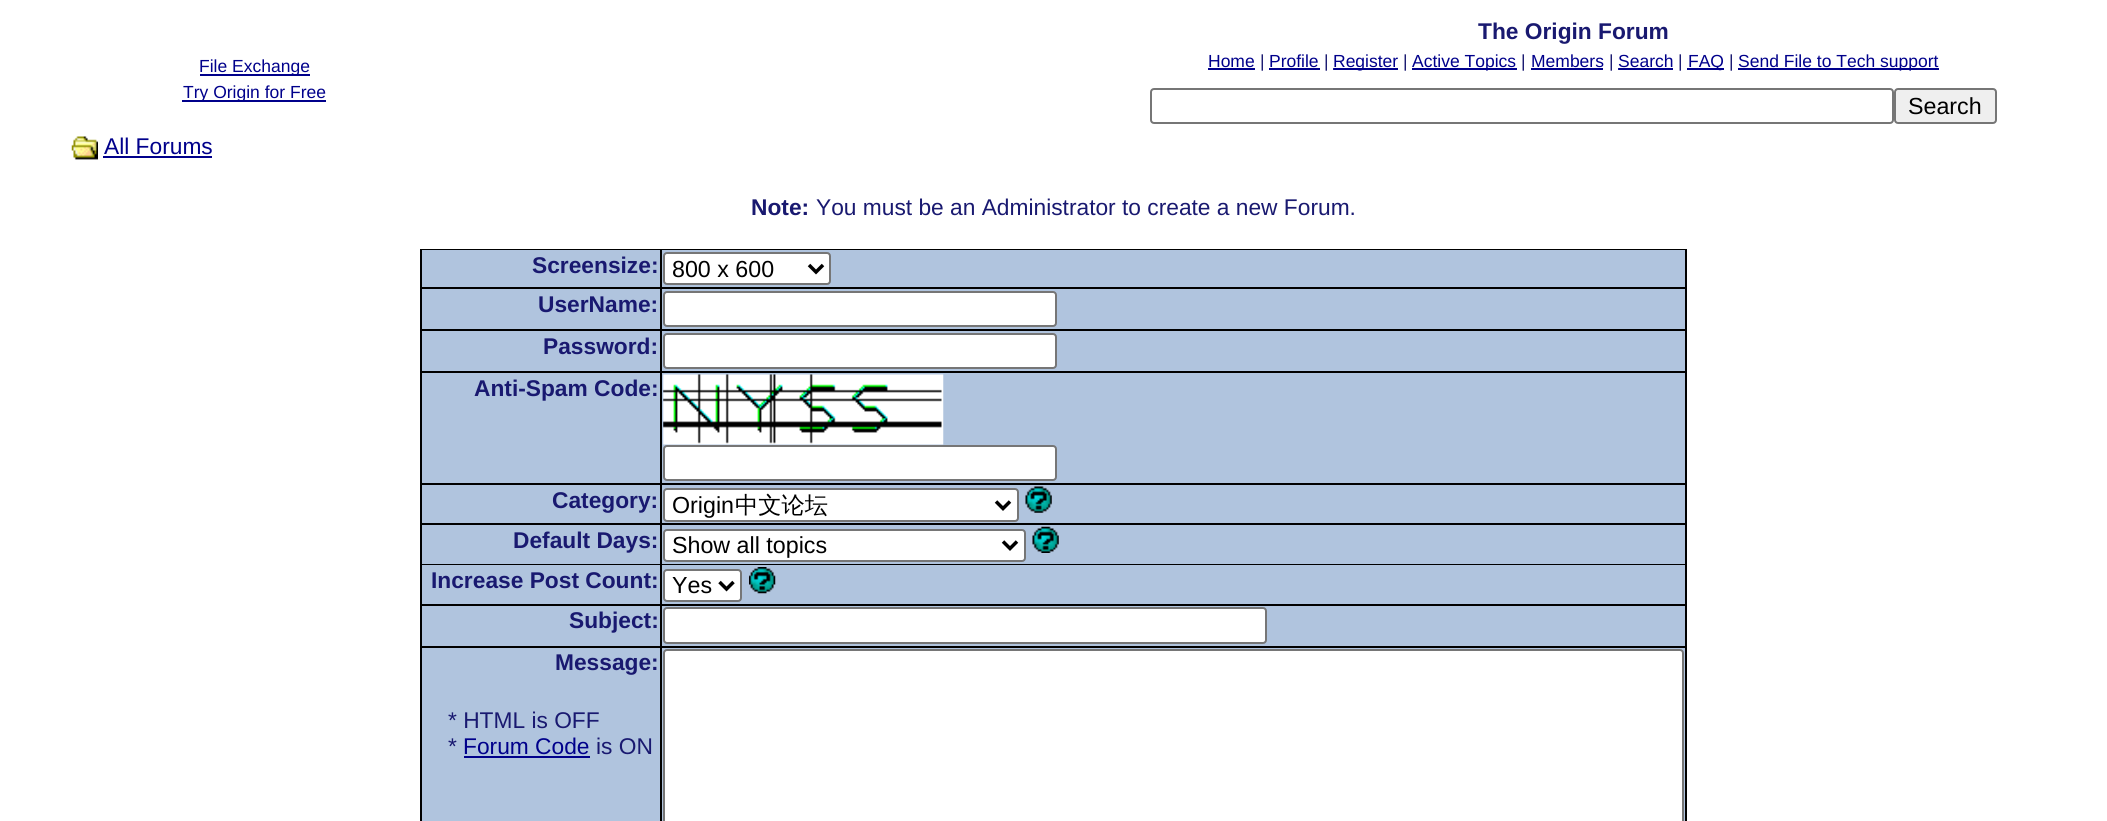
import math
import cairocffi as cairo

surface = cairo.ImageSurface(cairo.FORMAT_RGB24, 2107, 821)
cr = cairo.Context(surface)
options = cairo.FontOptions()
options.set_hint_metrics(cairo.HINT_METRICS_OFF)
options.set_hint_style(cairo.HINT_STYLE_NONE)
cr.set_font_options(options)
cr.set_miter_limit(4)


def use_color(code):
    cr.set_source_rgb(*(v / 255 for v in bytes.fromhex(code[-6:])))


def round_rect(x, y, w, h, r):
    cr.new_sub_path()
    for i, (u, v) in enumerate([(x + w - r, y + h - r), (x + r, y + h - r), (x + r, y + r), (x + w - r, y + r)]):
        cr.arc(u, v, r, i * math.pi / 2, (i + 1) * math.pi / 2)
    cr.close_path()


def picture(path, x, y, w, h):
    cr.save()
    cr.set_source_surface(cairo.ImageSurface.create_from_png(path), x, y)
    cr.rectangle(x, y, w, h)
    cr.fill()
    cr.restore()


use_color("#ffffff")
cr.paint()
use_color("#00008b")
cr.rectangle(200, 74, 110, 2)
cr.fill()
cr.select_font_face("Liberation Sans")
cr.set_font_size(17.5)
cr.move_to(199, 72)
cr.show_text("File Exchange")
cr.rectangle(182, 100, 144, 2)
cr.fill()
cr.move_to(183, 98)
cr.show_text("Try Origin for Free")
cr.select_font_face("Liberation Sans", cairo.FONT_SLANT_NORMAL, cairo.FONT_WEIGHT_BOLD)
cr.set_font_size(22.75)
use_color("#191970")
cr.move_to(1478, 39)
cr.show_text("The Origin Forum")
cr.select_font_face("Liberation Sans")
cr.set_font_size(17.5)
use_color("#00008b")
cr.move_to(1208, 67)
cr.show_text("Home")
cr.rectangle(1208, 68, 47, 2)
cr.fill()
use_color("#191970")
cr.move_to(1260, 67)
cr.show_text("|")
use_color("#00008b")
cr.move_to(1269, 67)
cr.show_text("Profile")
cr.rectangle(1269, 68, 51, 2)
cr.fill()
use_color("#191970")
cr.move_to(1324, 67)
cr.show_text("|")
cr.new_path()
cr.move_to(1333, 69)
cr.line_to(1398, 69)
use_color("#00008b")
cr.set_line_width(1.8)
cr.set_dash([1.75, 1.75])
cr.stroke()
cr.rectangle(1334, 68, 64, 2)
cr.fill()
cr.move_to(1333, 67)
cr.show_text("Register")
use_color("#191970")
cr.move_to(1403, 67)
cr.show_text("|")
use_color("#00008b")
cr.rectangle(1412, 68, 105, 2)
cr.fill()
cr.move_to(1412, 67)
cr.show_text("Active Topics")
use_color("#191970")
cr.move_to(1521, 67)
cr.show_text("|")
use_color("#00008b")
cr.move_to(1531, 67)
cr.show_text("Members")
cr.rectangle(1531, 68, 72, 2)
cr.fill()
use_color("#191970")
cr.move_to(1609, 67)
cr.show_text("|")
use_color("#00008b")
cr.move_to(1618, 67)
cr.show_text("Search")
cr.new_path()
cr.move_to(1618, 69)
cr.line_to(1673.5, 69)
cr.stroke()
cr.rectangle(1619, 68, 54, 2)
cr.fill()
use_color("#191970")
cr.move_to(1678, 67)
cr.show_text("|")
use_color("#00008b")
cr.rectangle(1687, 68, 37, 2)
cr.fill()
cr.move_to(1688, 67)
cr.show_text("FAQ")
use_color("#191970")
cr.move_to(1729, 67)
cr.show_text("|")
use_color("#00008b")
cr.rectangle(1738, 68, 201, 2)
cr.fill()
cr.move_to(1738, 67)
cr.show_text("Send File to Tech support")
round_rect(1151, 89, 742, 34, 3)
use_color("#767676")
cr.set_line_width(2)
cr.set_dash([])
cr.stroke()
use_color("#efefef")
round_rect(1895, 89, 101, 34, 3)
cr.fill_preserve()
use_color("#767676")
cr.stroke()
cr.set_font_size(23.25)
use_color("#000000")
cr.move_to(1908, 114)
cr.show_text("Search")
picture("img1.png", 71, 136, 27, 24)
cr.set_font_size(22.75)
use_color("#00008b")
cr.move_to(104, 154)
cr.show_text("All Forums")
cr.rectangle(103, 156, 109, 2)
cr.fill()
cr.select_font_face("Liberation Sans", cairo.FONT_SLANT_NORMAL, cairo.FONT_WEIGHT_BOLD)
use_color("#191970")
cr.move_to(751, 215)
cr.show_text("Note:")
cr.select_font_face("Liberation Sans")
cr.move_to(816, 215)
cr.show_text("You must be an Administrator to create a new Forum.")
use_color("#000000")
cr.rectangle(420, 249, 1267, 572)
cr.fill()
use_color("#b0c4de")
cr.rectangle(422, 250, 238, 37)
cr.fill()
cr.select_font_face("Liberation Sans", cairo.FONT_SLANT_NORMAL, cairo.FONT_WEIGHT_BOLD)
use_color("#191970")
cr.move_to(532, 273)
cr.show_text("Screensize:")
use_color("#b0c4de")
cr.rectangle(662, 250, 1023, 37)
cr.fill()
use_color("#ffffff")
round_rect(664, 253, 166, 31, 3)
cr.fill_preserve()
use_color("#767676")
cr.stroke()
cr.new_path()
cr.move_to(809, 265)
cr.line_to(816, 272)
cr.line_to(823, 265)
use_color("#000000")
cr.set_line_width(3.5)
cr.stroke()
cr.select_font_face("Liberation Sans")
cr.set_font_size(23.25)
cr.move_to(672, 277)
cr.show_text("800 x 600")
use_color("#b0c4de")
cr.rectangle(422, 289, 238, 40)
cr.fill()
cr.select_font_face("Liberation Sans", cairo.FONT_SLANT_NORMAL, cairo.FONT_WEIGHT_BOLD)
cr.set_font_size(22.75)
use_color("#191970")
cr.move_to(538, 312)
cr.show_text("UserName:")
use_color("#b0c4de")
cr.rectangle(662, 289, 1023, 40)
cr.fill()
use_color("#ffffff")
round_rect(664, 292, 392, 34, 3)
cr.fill_preserve()
use_color("#767676")
cr.set_line_width(2)
cr.stroke()
use_color("#b0c4de")
cr.rectangle(422, 331, 238, 40)
cr.fill()
use_color("#191970")
cr.move_to(543, 354)
cr.show_text("Password:")
use_color("#b0c4de")
cr.rectangle(662, 331, 1023, 40)
cr.fill()
use_color("#ffffff")
round_rect(664, 334, 392, 34, 3)
cr.fill_preserve()
use_color("#767676")
cr.stroke()
use_color("#b0c4de")
cr.rectangle(422, 373, 238, 110)
cr.fill()
use_color("#191970")
cr.move_to(474, 396)
cr.show_text("Anti-Spam Code:")
use_color("#b0c4de")
cr.rectangle(662, 373, 1023, 110)
cr.fill()
picture("img2.png", 663, 374, 281, 71)
use_color("#ffffff")
round_rect(664, 446, 392, 34, 3)
cr.fill_preserve()
use_color("#767676")
cr.stroke()
use_color("#b0c4de")
cr.rectangle(422, 485, 238, 38)
cr.fill()
use_color("#191970")
cr.move_to(552, 508)
cr.show_text("Category:")
use_color("#b0c4de")
cr.rectangle(662, 485, 1023, 38)
cr.fill()
use_color("#ffffff")
round_rect(664, 489, 354, 32, 3)
cr.fill_preserve()
use_color("#767676")
cr.stroke()
cr.new_path()
cr.move_to(996, 501.5)
cr.line_to(1003, 508.5)
cr.line_to(1010, 501.5)
use_color("#000000")
cr.set_line_width(3.5)
cr.stroke()
cr.select_font_face("Liberation Sans")
cr.set_font_size(23.25)
cr.move_to(672, 513)
cr.show_text("Origin")
cr.select_font_face("WenQuanYi Zen Hei Medium")
cr.move_to(735, 513)
cr.show_text("中文论坛")
picture("img3.png", 1025, 486, 27, 27)
use_color("#b0c4de")
cr.rectangle(422, 525, 238, 39)
cr.fill()
cr.select_font_face("Liberation Sans", cairo.FONT_SLANT_NORMAL, cairo.FONT_WEIGHT_BOLD)
cr.set_font_size(22.75)
use_color("#191970")
cr.move_to(513, 548)
cr.show_text("Default Days:")
use_color("#b0c4de")
cr.rectangle(662, 525, 1023, 39)
cr.fill()
use_color("#ffffff")
round_rect(664, 530, 361, 31, 3)
cr.fill_preserve()
use_color("#767676")
cr.set_line_width(2)
cr.stroke()
cr.new_path()
cr.move_to(1003, 541.5)
cr.line_to(1010, 548.5)
cr.line_to(1017, 541.5)
use_color("#000000")
cr.set_line_width(3.5)
cr.stroke()
cr.select_font_face("Liberation Sans")
cr.set_font_size(23.25)
cr.move_to(672, 553)
cr.show_text("Show all topics")
picture("img4.png", 1032, 526, 27, 27)
use_color("#b0c4de")
cr.rectangle(422, 565, 238, 39)
cr.fill()
cr.select_font_face("Liberation Sans", cairo.FONT_SLANT_NORMAL, cairo.FONT_WEIGHT_BOLD)
cr.set_font_size(22.75)
use_color("#191970")
cr.move_to(431, 588)
cr.show_text("Increase Post Count:")
use_color("#b0c4de")
cr.rectangle(662, 565, 1023, 39)
cr.fill()
use_color("#ffffff")
round_rect(664, 570, 77, 31, 3)
cr.fill_preserve()
use_color("#767676")
cr.set_line_width(2)
cr.stroke()
cr.new_path()
cr.move_to(719.5, 582)
cr.line_to(726.5, 589)
cr.line_to(733.5, 582)
use_color("#000000")
cr.set_line_width(3.5)
cr.stroke()
cr.select_font_face("Liberation Sans")
cr.set_font_size(23.25)
cr.move_to(672, 593)
cr.show_text("Yes")
picture("img5.png", 749, 567, 27, 27)
use_color("#b0c4de")
cr.rectangle(422, 606, 238, 40)
cr.fill()
cr.select_font_face("Liberation Sans", cairo.FONT_SLANT_NORMAL, cairo.FONT_WEIGHT_BOLD)
cr.set_font_size(22.75)
use_color("#191970")
cr.move_to(569, 628)
cr.show_text("Subject:")
use_color("#b0c4de")
cr.rectangle(662, 606, 1023, 40)
cr.fill()
use_color("#ffffff")
round_rect(664, 608, 602, 35, 3)
cr.fill_preserve()
use_color("#767676")
cr.set_line_width(2)
cr.stroke()
use_color("#b0c4de")
cr.rectangle(422, 648, 238, 173)
cr.fill()
use_color("#191970")
cr.move_to(555, 670)
cr.show_text("Message:")
cr.select_font_face("Liberation Sans")
cr.move_to(448, 728)
cr.show_text("* HTML is OFF")
cr.move_to(448, 754)
cr.show_text("*")
use_color("#00008b")
cr.move_to(463, 754)
cr.show_text("Forum Code")
cr.rectangle(464, 756, 126, 2)
cr.fill()
use_color("#191970")
cr.move_to(596, 754)
cr.show_text("is ON")
use_color("#b0c4de")
cr.rectangle(662, 648, 1023, 173)
cr.fill()
use_color("#ffffff")
round_rect(664, 650, 1019, 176, 3)
cr.fill_preserve()
use_color("#767676")
cr.stroke()
surface.write_to_png("result.png")
